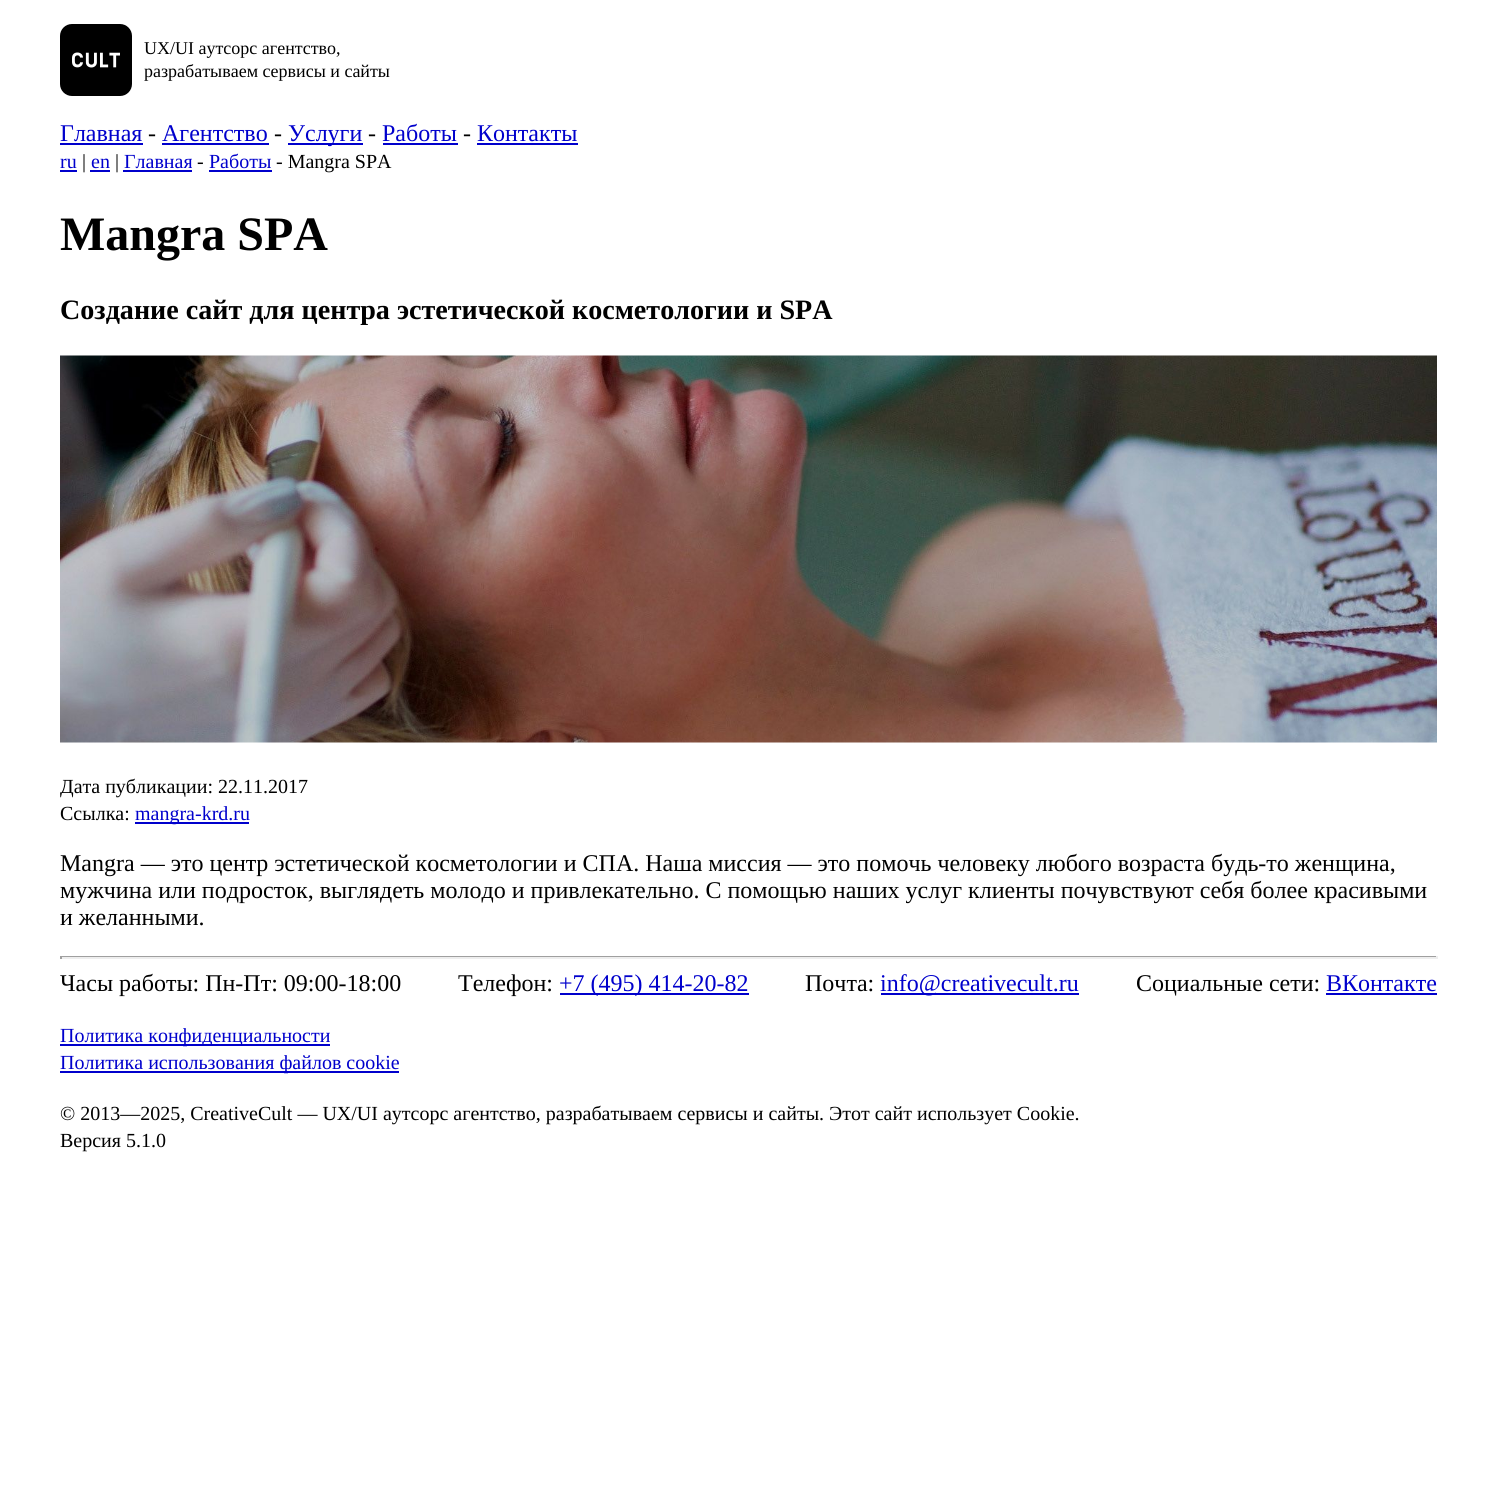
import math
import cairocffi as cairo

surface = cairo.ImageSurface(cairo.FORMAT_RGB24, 1497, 1492)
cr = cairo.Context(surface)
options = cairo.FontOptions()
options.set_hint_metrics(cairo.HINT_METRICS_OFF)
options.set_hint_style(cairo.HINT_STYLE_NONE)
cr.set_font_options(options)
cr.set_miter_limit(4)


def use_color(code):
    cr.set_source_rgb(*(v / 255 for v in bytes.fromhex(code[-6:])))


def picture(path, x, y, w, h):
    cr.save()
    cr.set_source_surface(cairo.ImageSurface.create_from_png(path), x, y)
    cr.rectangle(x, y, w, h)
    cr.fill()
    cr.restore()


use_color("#ffffff")
cr.paint()
picture("img1.png", 60, 24, 72, 72)
cr.select_font_face("Liberation Serif")
cr.set_font_size(18)
use_color("#000000")
cr.move_to(144, 54)
cr.show_text("UX/UI аутсорс агентство,")
cr.move_to(144, 77)
cr.show_text("разрабатываем сервисы и сайты")
cr.set_font_size(24)
use_color("#0000cc")
cr.move_to(60, 141)
cr.show_text("Главная")
cr.rectangle(60, 143, 83, 2)
cr.fill()
use_color("#000000")
cr.move_to(148, 141)
cr.show_text("-")
use_color("#0000cc")
cr.move_to(162, 141)
cr.show_text("Агентство")
cr.rectangle(162, 143, 107, 2)
cr.fill()
use_color("#000000")
cr.move_to(274, 141)
cr.show_text("-")
use_color("#0000cc")
cr.rectangle(288, 143, 75, 2)
cr.fill()
cr.move_to(288, 141)
cr.show_text("Услуги")
use_color("#000000")
cr.move_to(368, 141)
cr.show_text("-")
use_color("#0000cc")
cr.move_to(382, 141)
cr.show_text("Работы")
cr.rectangle(383, 143, 75, 2)
cr.fill()
use_color("#000000")
cr.move_to(463, 141)
cr.show_text("-")
use_color("#0000cc")
cr.move_to(477, 141)
cr.show_text("Контакты")
cr.rectangle(477, 143, 101, 2)
cr.fill()
cr.set_font_size(20)
cr.move_to(60, 168)
cr.show_text("ru")
cr.rectangle(60, 170, 17, 2)
cr.fill()
use_color("#000000")
cr.move_to(82, 168)
cr.show_text("|")
use_color("#0000cc")
cr.move_to(91, 168)
cr.show_text("en")
cr.rectangle(90, 170, 20, 2)
cr.fill()
use_color("#000000")
cr.move_to(115, 168)
cr.show_text("|")
use_color("#0000cc")
cr.move_to(124, 168)
cr.show_text("Главная")
cr.rectangle(123, 170, 69, 2)
cr.fill()
use_color("#000000")
cr.move_to(197, 168)
cr.show_text("-")
use_color("#0000cc")
cr.move_to(209, 168)
cr.show_text("Работы")
use_color("#000000")
cr.move_to(276, 168)
cr.show_text("- Mangra SPA")
use_color("#0000cc")
cr.rectangle(209, 170, 63, 2)
cr.fill()
cr.select_font_face("Liberation Serif", cairo.FONT_SLANT_NORMAL, cairo.FONT_WEIGHT_BOLD)
cr.set_font_size(48)
use_color("#000000")
cr.move_to(60, 250)
cr.show_text("Mangra SPA")
cr.set_font_size(28.1)
cr.move_to(60, 319)
cr.show_text("Создание сайт для центра эстетической косметологии и SPA")
picture("img2.png", 60, 355, 1377, 388)
cr.select_font_face("Liberation Serif")
cr.set_font_size(20)
cr.move_to(60, 793)
cr.show_text("Дата публикации: 22.11.2017")
cr.move_to(60, 820)
cr.show_text("Ссылка:")
use_color("#0000cc")
cr.rectangle(135, 822, 114, 2)
cr.fill()
cr.move_to(135, 820)
cr.show_text("mangra-krd.ru")
cr.set_font_size(24)
use_color("#000000")
cr.move_to(60, 871)
cr.show_text("Mangra — это центр эстетической косметологии и СПА. Наша миссия — это помочь человеку любого возраста будь-то женщина,")
cr.move_to(60, 898)
cr.show_text("мужчина или подросток, выглядеть молодо и привлекательно. С помощью наших услуг клиенты почувствуют себя более красивыми")
cr.move_to(60, 925)
cr.show_text("и желанными.")
use_color("#9f9f9f")
cr.rectangle(60, 956, 1377, 1)
cr.fill()
use_color("#eeeeee")
cr.rectangle(1436, 956, 2, 3)
cr.fill()
cr.rectangle(60, 957, 1377, 2)
cr.fill()
use_color("#9f9f9f")
cr.rectangle(60, 956, 2, 3)
cr.fill()
use_color("#000000")
cr.move_to(60, 991)
cr.show_text("Часы работы: Пн-Пт: 09:00-18:00")
cr.move_to(458, 991)
cr.show_text("Телефон:")
use_color("#0000cc")
cr.rectangle(560, 993, 189, 2)
cr.fill()
cr.move_to(559, 991)
cr.show_text("+7 (495) 414-20-82")
use_color("#000000")
cr.move_to(805, 991)
cr.show_text("Почта:")
use_color("#0000cc")
cr.rectangle(881, 993, 198, 2)
cr.fill()
cr.move_to(880, 991)
cr.show_text("info@creativecult.ru")
use_color("#000000")
cr.move_to(1136, 991)
cr.show_text("Социальные сети:")
use_color("#0000cc")
cr.move_to(1326, 991)
cr.show_text("ВКонтакте")
cr.rectangle(1326, 993, 111, 2)
cr.fill()
cr.rectangle(60, 1044, 270, 2)
cr.fill()
cr.set_font_size(20)
cr.move_to(60, 1042)
cr.show_text("Политика конфиденциальности")
cr.rectangle(60, 1071, 339, 2)
cr.fill()
cr.move_to(60, 1069)
cr.show_text("Политика использования файлов cookie")
use_color("#000000")
cr.move_to(60, 1120)
cr.show_text("© 2013—2025, CreativeCult — UX/UI аутсорс агентство, разрабатываем сервисы и сайты. Этот сайт использует Cookie.")
cr.move_to(60, 1147)
cr.show_text("Версия 5.1.0")
surface.write_to_png("result.png")
